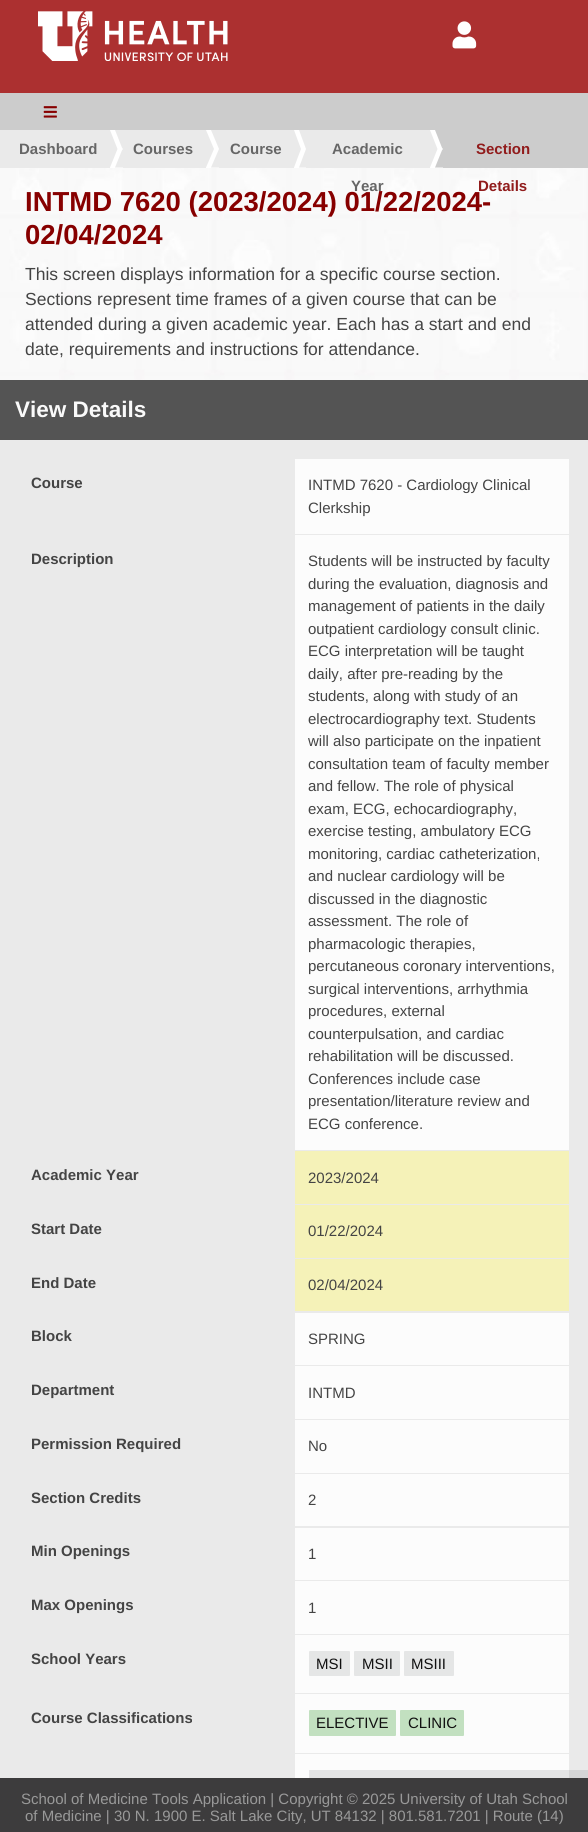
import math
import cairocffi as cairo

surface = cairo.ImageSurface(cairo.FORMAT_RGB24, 588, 1832)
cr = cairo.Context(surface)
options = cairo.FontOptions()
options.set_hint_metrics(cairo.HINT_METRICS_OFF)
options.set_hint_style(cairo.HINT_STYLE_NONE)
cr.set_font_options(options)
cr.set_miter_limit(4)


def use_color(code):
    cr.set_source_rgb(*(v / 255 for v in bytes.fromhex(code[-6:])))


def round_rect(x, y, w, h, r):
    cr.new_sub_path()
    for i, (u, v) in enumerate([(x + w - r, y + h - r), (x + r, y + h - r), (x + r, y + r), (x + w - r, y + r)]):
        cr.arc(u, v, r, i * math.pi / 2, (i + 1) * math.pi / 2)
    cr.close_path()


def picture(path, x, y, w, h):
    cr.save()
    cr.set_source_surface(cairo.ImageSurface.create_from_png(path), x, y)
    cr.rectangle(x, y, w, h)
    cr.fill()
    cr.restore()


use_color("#ffffff")
cr.paint()
picture("img1.png", 0, 168, 588, 212)
use_color("#ac3030")
cr.rectangle(0, 0, 588, 93)
cr.fill()
picture("img2.png", 38, 11, 190, 50)
picture("img3.png", 452, 21, 25, 28)
use_color("#cccccc")
cr.rectangle(0, 93, 588, 37)
cr.fill()
picture("img4.png", 43, 106, 14, 12)
cr.rectangle(450, 130, 138, 38)
cr.fill()
use_color("#eaeaea")
cr.rectangle(0, 130, 110, 38)
cr.fill()
cr.select_font_face("Liberation Sans", cairo.FONT_SLANT_NORMAL, cairo.FONT_WEIGHT_BOLD)
cr.set_font_size(15)
use_color("#666666")
cr.move_to(19, 154)
cr.show_text("Dashboard")
use_color("#eaeaea")
cr.new_path()
cr.move_to(110, 167.5)
cr.line_to(110, 130)
cr.line_to(117.5, 149)
cr.close_path()
cr.fill()
cr.rectangle(130, 130, 76, 38)
cr.fill()
cr.new_path()
cr.move_to(115, 130)
cr.line_to(130, 130)
cr.line_to(122.5, 149)
cr.close_path()
cr.fill()
cr.rectangle(123, 130, 7, 38)
cr.fill()
cr.new_path()
cr.move_to(130, 167.5)
cr.line_to(115, 167.5)
cr.line_to(122.5, 149)
cr.close_path()
cr.fill()
use_color("#666666")
cr.move_to(133, 154)
cr.show_text("Courses")
use_color("#eaeaea")
cr.new_path()
cr.move_to(206, 167.5)
cr.line_to(206, 130)
cr.line_to(214, 149)
cr.close_path()
cr.fill()
cr.rectangle(226, 130, 68, 38)
cr.fill()
cr.new_path()
cr.move_to(211, 130)
cr.line_to(226, 130)
cr.line_to(219, 149)
cr.close_path()
cr.fill()
cr.rectangle(219, 130, 7, 38)
cr.fill()
cr.new_path()
cr.move_to(226, 167.5)
cr.line_to(211, 167.5)
cr.line_to(219, 149)
cr.close_path()
cr.fill()
use_color("#666666")
cr.move_to(230, 154)
cr.show_text("Course")
use_color("#eaeaea")
cr.new_path()
cr.move_to(294, 167.5)
cr.line_to(294, 130)
cr.line_to(301, 149)
cr.close_path()
cr.fill()
cr.rectangle(314, 130, 116, 38)
cr.fill()
cr.new_path()
cr.move_to(299, 130)
cr.line_to(314, 130)
cr.line_to(306, 149)
cr.close_path()
cr.fill()
cr.rectangle(306, 130, 8, 38)
cr.fill()
cr.new_path()
cr.move_to(314, 167.5)
cr.line_to(299, 167.5)
cr.line_to(306, 149)
cr.close_path()
cr.fill()
use_color("#666666")
cr.move_to(332, 154)
cr.show_text("Academic")
use_color("#eaeaea")
cr.new_path()
cr.move_to(430, 167.5)
cr.line_to(430, 130)
cr.line_to(437.5, 149)
cr.close_path()
cr.fill()
use_color("#666666")
cr.move_to(351, 191)
cr.show_text("Year")
use_color("#cccccc")
cr.new_path()
cr.move_to(435, 130)
cr.line_to(450, 130)
cr.line_to(442.5, 149)
cr.close_path()
cr.fill()
cr.rectangle(443, 130, 7, 38)
cr.fill()
cr.new_path()
cr.move_to(450, 167.5)
cr.line_to(435, 167.5)
cr.line_to(442.5, 149)
cr.close_path()
cr.fill()
use_color("#911c1c")
cr.move_to(476, 154)
cr.show_text("Section")
cr.move_to(478, 191)
cr.show_text("Details")
cr.set_font_size(27.5)
use_color("#870000")
cr.move_to(25, 211)
cr.show_text("INTMD 7620 (2023/2024) 01/22/2024-")
cr.move_to(25, 244)
cr.show_text("02/04/2024")
cr.select_font_face("Liberation Sans")
cr.set_font_size(17.5)
use_color("#444444")
cr.move_to(25, 280)
cr.show_text("This screen displays information for a specific course section.")
cr.move_to(25, 305)
cr.show_text("Sections represent time frames of a given course that can be")
cr.move_to(25, 330)
cr.show_text("attended during a given academic year. Each has a start and end")
cr.move_to(25, 355)
cr.show_text("date, requirements and instructions for attendance.")
use_color("#545454")
cr.rectangle(0, 380, 588, 60)
cr.fill()
cr.select_font_face("Liberation Sans", cairo.FONT_SLANT_NORMAL, cairo.FONT_WEIGHT_BOLD)
cr.set_font_size(22.5)
use_color("#fafafa")
cr.move_to(15, 417)
cr.show_text("View Details")
use_color("#eaeaea")
cr.rectangle(0, 440, 588, 1338)
cr.fill()
cr.set_font_size(15)
use_color("#444444")
cr.move_to(31, 488)
cr.show_text("Course")
use_color("#fcfcfc")
cr.rectangle(295, 459, 274, 75)
cr.fill()
cr.select_font_face("Liberation Sans")
use_color("#444444")
cr.move_to(308, 490)
cr.show_text("INTMD 7620 - Cardiology Clinical")
cr.move_to(308, 513)
cr.show_text("Clerkship")
cr.select_font_face("Liberation Sans", cairo.FONT_SLANT_NORMAL, cairo.FONT_WEIGHT_BOLD)
cr.move_to(31, 564)
cr.show_text("Description")
use_color("#fcfcfc")
cr.rectangle(295, 535, 274, 615)
cr.fill()
cr.select_font_face("Liberation Sans")
use_color("#444444")
cr.move_to(308, 566)
cr.show_text("Students will be instructed by faculty")
cr.move_to(308, 589)
cr.show_text("during the evaluation, diagnosis and")
cr.move_to(308, 611)
cr.show_text("management of patients in the daily")
cr.move_to(308, 634)
cr.show_text("outpatient cardiology consult clinic.")
cr.move_to(308, 656)
cr.show_text("ECG interpretation will be taught")
cr.move_to(308, 679)
cr.show_text("daily, after pre-reading by the")
cr.move_to(308, 701)
cr.show_text("students, along with study of an")
cr.move_to(308, 724)
cr.show_text("electrocardiography text. Students")
cr.move_to(308, 746)
cr.show_text("will also participate on the inpatient")
cr.move_to(308, 769)
cr.show_text("consultation team of faculty member")
cr.move_to(308, 791)
cr.show_text("and fellow. The role of physical")
cr.move_to(308, 814)
cr.show_text("exam, ECG, echocardiography,")
cr.move_to(308, 836)
cr.show_text("exercise testing, ambulatory ECG")
cr.move_to(308, 859)
cr.show_text("monitoring, cardiac catheterization,")
cr.move_to(308, 881)
cr.show_text("and nuclear cardiology will be")
cr.move_to(308, 904)
cr.show_text("discussed in the diagnostic")
cr.move_to(308, 926)
cr.show_text("assessment. The role of")
cr.move_to(308, 949)
cr.show_text("pharmacologic therapies,")
cr.move_to(308, 971)
cr.show_text("percutaneous coronary interventions,")
cr.move_to(308, 994)
cr.show_text("surgical interventions, arrhythmia")
cr.move_to(308, 1016)
cr.show_text("procedures, external")
cr.move_to(308, 1039)
cr.show_text("counterpulsation, and cardiac")
cr.move_to(308, 1061)
cr.show_text("rehabilitation will be discussed.")
cr.move_to(308, 1084)
cr.show_text("Conferences include case")
cr.move_to(308, 1106)
cr.show_text("presentation/literature review and")
cr.move_to(308, 1129)
cr.show_text("ECG conference.")
cr.select_font_face("Liberation Sans", cairo.FONT_SLANT_NORMAL, cairo.FONT_WEIGHT_BOLD)
cr.move_to(31, 1180)
cr.show_text("Academic Year")
use_color("#f5f2b8")
cr.rectangle(295, 1151, 274, 53)
cr.fill()
cr.select_font_face("Liberation Sans")
use_color("#444444")
cr.move_to(308, 1183)
cr.show_text("2023/2024")
cr.select_font_face("Liberation Sans", cairo.FONT_SLANT_NORMAL, cairo.FONT_WEIGHT_BOLD)
cr.move_to(31, 1234)
cr.show_text("Start Date")
use_color("#f5f2b8")
cr.rectangle(295, 1205, 274, 53)
cr.fill()
cr.select_font_face("Liberation Sans")
use_color("#444444")
cr.move_to(308, 1236)
cr.show_text("01/22/2024")
cr.select_font_face("Liberation Sans", cairo.FONT_SLANT_NORMAL, cairo.FONT_WEIGHT_BOLD)
cr.move_to(31, 1288)
cr.show_text("End Date")
use_color("#f5f2b8")
cr.rectangle(295, 1259, 274, 52)
cr.fill()
cr.select_font_face("Liberation Sans")
use_color("#444444")
cr.move_to(308, 1290)
cr.show_text("02/04/2024")
cr.select_font_face("Liberation Sans", cairo.FONT_SLANT_NORMAL, cairo.FONT_WEIGHT_BOLD)
cr.move_to(31, 1341)
cr.show_text("Block")
use_color("#fcfcfc")
cr.rectangle(295, 1313, 274, 52)
cr.fill()
cr.select_font_face("Liberation Sans")
use_color("#444444")
cr.move_to(308, 1344)
cr.show_text("SPRING")
cr.select_font_face("Liberation Sans", cairo.FONT_SLANT_NORMAL, cairo.FONT_WEIGHT_BOLD)
cr.move_to(31, 1395)
cr.show_text("Department")
use_color("#fcfcfc")
cr.rectangle(295, 1366, 274, 53)
cr.fill()
cr.select_font_face("Liberation Sans")
use_color("#444444")
cr.move_to(308, 1398)
cr.show_text("INTMD")
cr.select_font_face("Liberation Sans", cairo.FONT_SLANT_NORMAL, cairo.FONT_WEIGHT_BOLD)
cr.move_to(31, 1449)
cr.show_text("Permission Required")
use_color("#fcfcfc")
cr.rectangle(295, 1420, 274, 53)
cr.fill()
cr.select_font_face("Liberation Sans")
use_color("#444444")
cr.move_to(308, 1451)
cr.show_text("No")
cr.select_font_face("Liberation Sans", cairo.FONT_SLANT_NORMAL, cairo.FONT_WEIGHT_BOLD)
cr.move_to(31, 1503)
cr.show_text("Section Credits")
use_color("#fcfcfc")
cr.rectangle(295, 1474, 274, 52)
cr.fill()
cr.select_font_face("Liberation Sans")
use_color("#444444")
cr.move_to(308, 1505)
cr.show_text("2")
cr.select_font_face("Liberation Sans", cairo.FONT_SLANT_NORMAL, cairo.FONT_WEIGHT_BOLD)
cr.move_to(31, 1556)
cr.show_text("Min Openings")
use_color("#fcfcfc")
cr.rectangle(295, 1528, 274, 52)
cr.fill()
cr.select_font_face("Liberation Sans")
use_color("#444444")
cr.move_to(308, 1559)
cr.show_text("1")
cr.select_font_face("Liberation Sans", cairo.FONT_SLANT_NORMAL, cairo.FONT_WEIGHT_BOLD)
cr.move_to(31, 1610)
cr.show_text("Max Openings")
use_color("#fcfcfc")
cr.rectangle(295, 1581, 274, 53)
cr.fill()
cr.select_font_face("Liberation Sans")
use_color("#444444")
cr.move_to(308, 1613)
cr.show_text("1")
cr.select_font_face("Liberation Sans", cairo.FONT_SLANT_NORMAL, cairo.FONT_WEIGHT_BOLD)
cr.move_to(31, 1664)
cr.show_text("School Years")
use_color("#fcfcfc")
cr.rectangle(295, 1635, 274, 58)
cr.fill()
use_color("#e5e6e6")
round_rect(309, 1651, 41, 25, 1)
cr.fill()
cr.select_font_face("Liberation Sans")
use_color("#111111")
cr.move_to(316, 1669)
cr.show_text("MSI")
use_color("#e5e6e6")
round_rect(354, 1651, 46, 25, 1)
cr.fill()
use_color("#111111")
cr.move_to(362, 1669)
cr.show_text("MSII")
use_color("#e5e6e6")
round_rect(404, 1651, 50, 25, 1)
cr.fill()
use_color("#111111")
cr.move_to(411, 1669)
cr.show_text("MSIII")
cr.select_font_face("Liberation Sans", cairo.FONT_SLANT_NORMAL, cairo.FONT_WEIGHT_BOLD)
use_color("#444444")
cr.move_to(31, 1723)
cr.show_text("Course Classifications")
use_color("#fcfcfc")
cr.rectangle(295, 1694, 274, 59)
cr.fill()
use_color("#c2e0c0")
round_rect(309, 1710, 87, 26, 1)
cr.fill()
cr.select_font_face("Liberation Sans")
use_color("#111111")
cr.move_to(316, 1728)
cr.show_text("ELECTIVE")
use_color("#c2e0c0")
round_rect(400, 1710, 64, 26, 1)
cr.fill()
use_color("#111111")
cr.move_to(408, 1728)
cr.show_text("CLINIC")
use_color("#fcfcfc")
cr.rectangle(295, 1754, 274, 24)
cr.fill()
cr.set_source_rgba(0.094, 0.11, 0.129, 0.1)
cr.rectangle(309, 1770, 279, 8)
cr.fill()
use_color("#3d3c3d")
cr.rectangle(0, 1778, 588, 54)
cr.fill()
use_color("#999999")
cr.move_to(21, 1804)
cr.show_text("School of Medicine Tools Application | Copyright © 2025 University of Utah School")
cr.move_to(25, 1821)
cr.show_text("of Medicine | 30 N. 1900 E. Salt Lake City, UT 84132 | 801.581.7201 | Route (14)")
surface.write_to_png("result.png")
